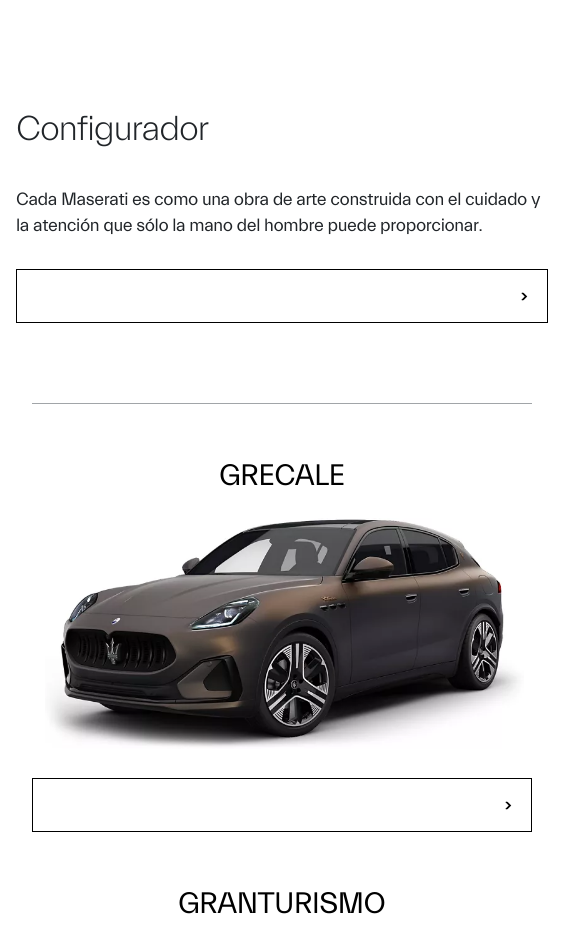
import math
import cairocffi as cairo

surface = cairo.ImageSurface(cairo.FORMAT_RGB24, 564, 928)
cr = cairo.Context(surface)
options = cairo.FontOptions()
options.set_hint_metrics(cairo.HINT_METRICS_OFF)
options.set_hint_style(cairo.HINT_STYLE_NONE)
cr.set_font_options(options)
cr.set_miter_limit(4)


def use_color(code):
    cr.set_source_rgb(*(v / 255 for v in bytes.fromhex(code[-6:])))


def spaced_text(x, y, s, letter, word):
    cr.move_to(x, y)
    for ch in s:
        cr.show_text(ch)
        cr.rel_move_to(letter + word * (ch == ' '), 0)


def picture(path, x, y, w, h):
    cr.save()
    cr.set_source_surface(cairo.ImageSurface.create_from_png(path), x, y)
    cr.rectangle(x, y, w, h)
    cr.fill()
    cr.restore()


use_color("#ffffff")
cr.paint()
cr.select_font_face("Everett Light")
cr.set_font_size(35)
use_color("#212529")
spaced_text(16, 140, "Configurador", -1, 0)
cr.select_font_face("Everett")
cr.set_font_size(18)
spaced_text(16, 205, "Cada Maserati es como una obra de arte construida con el cuidado y", -0.4, 0)
spaced_text(16, 231, "la atención que sólo la mano del hombre puede proporcionar.", -0.4, 0)
cr.rectangle(16.5, 269.5, 531, 53)
use_color("#000000")
cr.set_line_width(1)
cr.stroke()
picture("img1.png", 521, 292, 7, 9)
use_color("#a1a5a8")
cr.rectangle(32, 403, 500, 1)
cr.fill()
cr.set_font_size(30)
use_color("#000000")
spaced_text(219, 485, "GRECALE", -0.75, 0)
picture("img2.png", 45, 518, 479, 231)
cr.rectangle(32.5, 778.5, 499, 53)
cr.stroke()
picture("img1.png", 505, 801, 7, 9)
spaced_text(178, 913, "GRANTURISMO", -0.75, 0)
surface.write_to_png("result.png")
